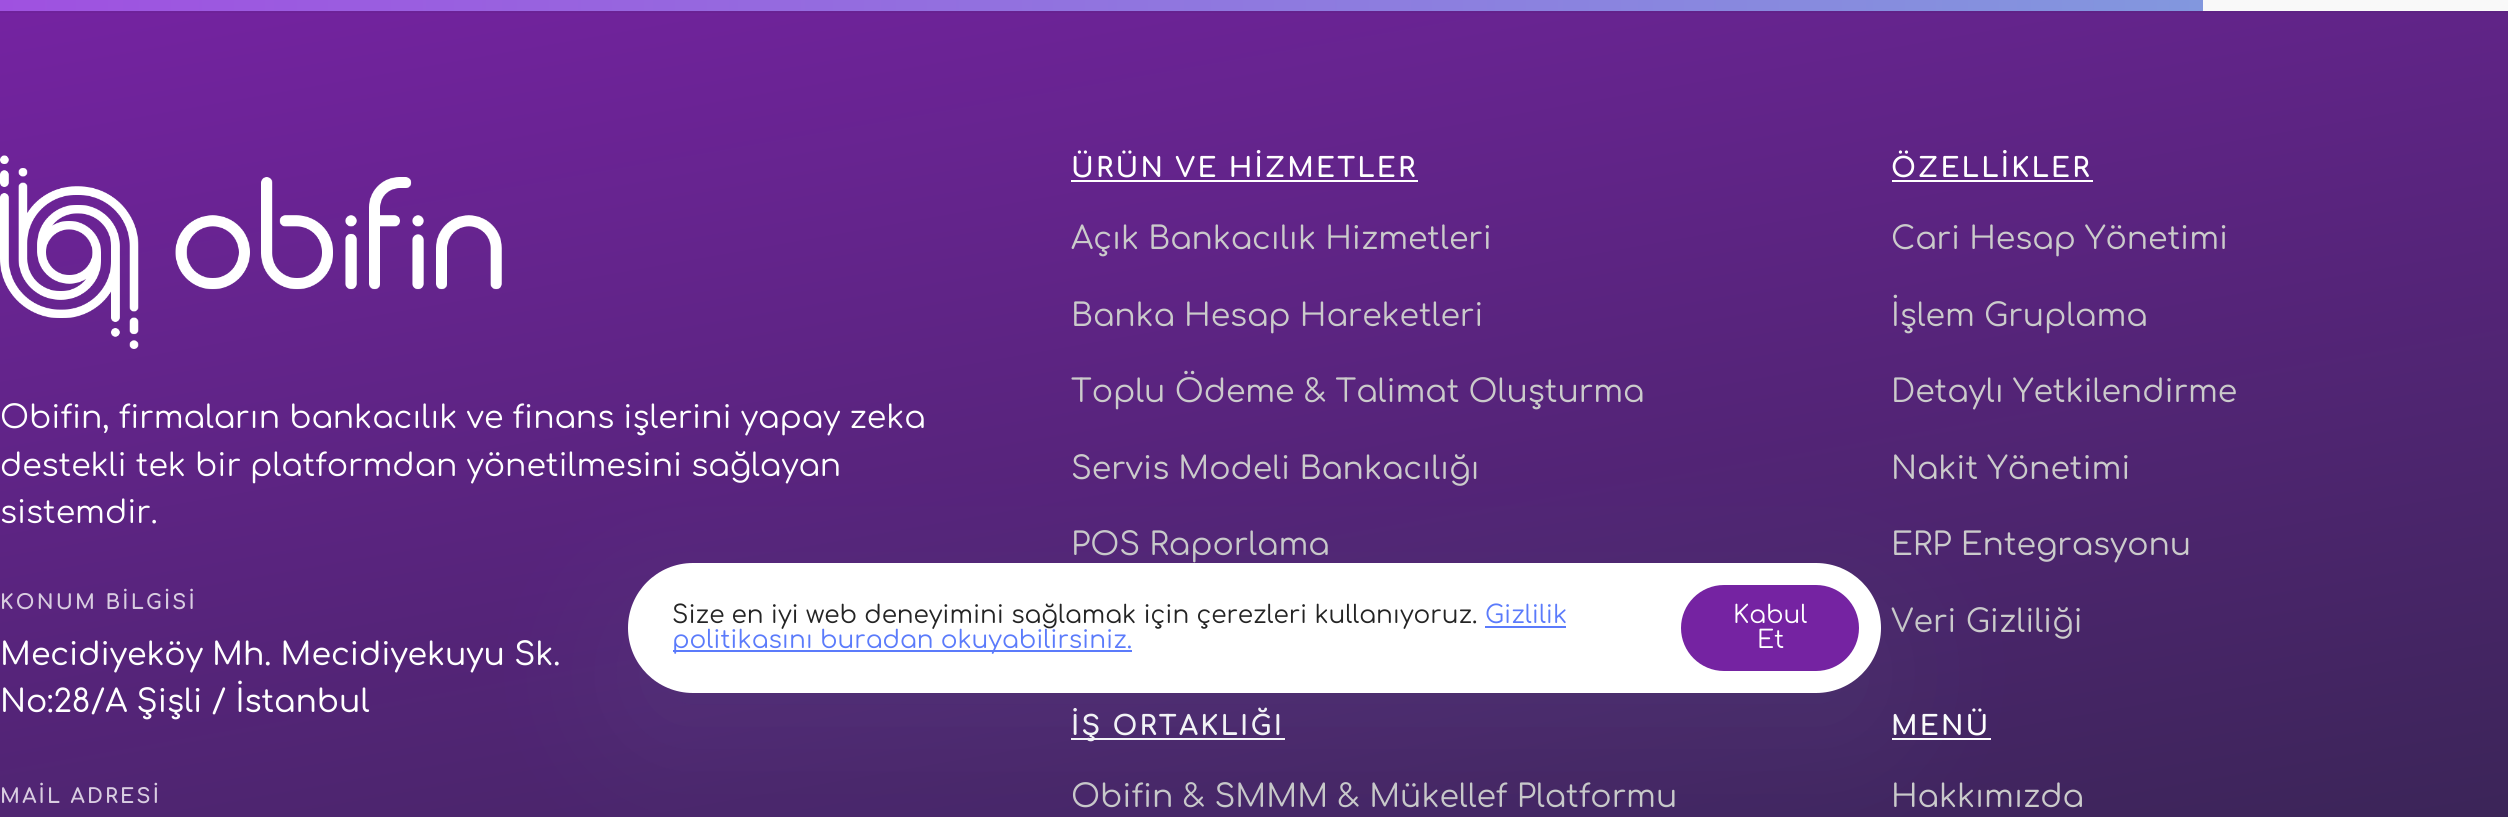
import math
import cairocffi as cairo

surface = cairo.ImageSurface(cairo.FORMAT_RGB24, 2508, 817)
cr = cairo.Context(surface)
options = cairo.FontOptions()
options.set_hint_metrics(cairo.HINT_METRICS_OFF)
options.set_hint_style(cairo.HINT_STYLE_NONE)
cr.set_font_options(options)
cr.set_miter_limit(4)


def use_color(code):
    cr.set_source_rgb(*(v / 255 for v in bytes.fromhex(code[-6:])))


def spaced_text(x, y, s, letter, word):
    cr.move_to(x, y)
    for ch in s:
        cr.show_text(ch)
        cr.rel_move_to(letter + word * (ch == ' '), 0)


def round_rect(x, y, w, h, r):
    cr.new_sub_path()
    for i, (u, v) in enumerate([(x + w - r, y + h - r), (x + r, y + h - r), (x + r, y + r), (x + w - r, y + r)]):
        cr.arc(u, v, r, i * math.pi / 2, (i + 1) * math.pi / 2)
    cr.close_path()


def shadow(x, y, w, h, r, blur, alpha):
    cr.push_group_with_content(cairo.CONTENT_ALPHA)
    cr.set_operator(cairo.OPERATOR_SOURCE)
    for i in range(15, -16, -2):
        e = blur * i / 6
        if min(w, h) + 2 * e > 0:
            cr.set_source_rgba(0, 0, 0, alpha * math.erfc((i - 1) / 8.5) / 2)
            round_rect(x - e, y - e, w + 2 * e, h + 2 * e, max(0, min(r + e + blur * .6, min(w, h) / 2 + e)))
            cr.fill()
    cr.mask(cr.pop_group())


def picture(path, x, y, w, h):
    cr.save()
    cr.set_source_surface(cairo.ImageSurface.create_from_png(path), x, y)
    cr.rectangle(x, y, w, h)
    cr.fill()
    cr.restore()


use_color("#ffffff")
cr.paint()
use_color("#f9f9f9")
cr.rectangle(2203, 0, 305, 11)
cr.fill()
gradient = cairo.LinearGradient(0, 5.6, 2203, 5.6)
gradient.add_color_stop_rgba(0, 0.624, 0.318, 0.878, 1)
gradient.add_color_stop_rgba(1, 0.51, 0.592, 0.871, 1)
cr.set_source(gradient)
cr.rectangle(0, 0, 2203, 11)
cr.fill()
gradient = cairo.LinearGradient(1082, -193, 1427, 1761)
gradient.add_color_stop_rgba(0, 0.459, 0.137, 0.635, 1)
gradient.add_color_stop_rgba(1, 0.098, 0.153, 0.173, 1)
cr.set_source(gradient)
cr.rectangle(0, 13, 2508, 804)
cr.fill()
gradient = cairo.LinearGradient(1082, -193, 1427, 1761)
gradient.add_color_stop_rgba(0, 0.439, 0.133, 0.612, 1)
gradient.add_color_stop_rgba(1, 0.094, 0.145, 0.165, 1)
cr.set_source(gradient)
cr.rectangle(0, 11, 2508, 2)
cr.fill()
picture("img1.png", 0, 155, 502, 194)
cr.select_font_face("Comfortaa")
cr.set_font_size(31.5)
use_color("#ffffff")
cr.move_to(0, 428)
cr.show_text("Obifin, firmaların bankacılık ve finans işlerini yapay zeka")
cr.move_to(0, 476)
cr.show_text("destekli tek bir platformdan yönetilmesini sağlayan")
cr.move_to(0, 523)
cr.show_text("sistemdir.")
cr.select_font_face("Comfortaa", cairo.FONT_SLANT_NORMAL, cairo.FONT_WEIGHT_BOLD)
cr.set_font_size(20.25)
use_color("#d9cde1")
spaced_text(0, 609, "KONUM BİLGİSİ", 2.25, 0)
cr.select_font_face("Comfortaa Medium")
cr.set_font_size(31.5)
use_color("#ffffff")
cr.move_to(0, 665)
cr.show_text("Mecidiyeköy Mh. Mecidiyekuyu Sk.")
cr.move_to(0, 712)
cr.show_text("No:28/A Şişli / İstanbul")
cr.select_font_face("Comfortaa", cairo.FONT_SLANT_NORMAL, cairo.FONT_WEIGHT_BOLD)
cr.set_font_size(20.25)
use_color("#d9cde1")
spaced_text(0, 803, "MAİL ADRESİ", 2.25, 0)
cr.set_font_size(27)
use_color("#ffffff")
spaced_text(1071, 177, "ÜRÜN VE HİZMETLER", 2.25, 0)
cr.rectangle(1071, 180, 347, 2)
cr.fill()
cr.select_font_face("Comfortaa")
cr.set_font_size(31.5)
use_color("#cbcbcb")
cr.move_to(1071, 249)
cr.show_text("Açık Bankacılık Hizmetleri")
cr.move_to(1071, 326)
cr.show_text("Banka Hesap Hareketleri")
cr.move_to(1071, 402)
cr.show_text("Toplu Ödeme & Talimat Oluşturma")
cr.move_to(1071, 479)
cr.show_text("Servis Modeli Bankacılığı")
cr.move_to(1071, 555)
cr.show_text("POS Raporlama")
use_color("#ffffff")
cr.rectangle(1071, 738, 214, 2)
cr.fill()
cr.select_font_face("Comfortaa", cairo.FONT_SLANT_NORMAL, cairo.FONT_WEIGHT_BOLD)
cr.set_font_size(27)
spaced_text(1071, 735, "İŞ ORTAKLIĞI", 2.25, 0)
cr.select_font_face("Comfortaa")
cr.set_font_size(31.5)
use_color("#cbcbcb")
cr.move_to(1071, 807)
cr.show_text("Obifin & SMMM & Mükellef Platformu")
cr.select_font_face("Comfortaa", cairo.FONT_SLANT_NORMAL, cairo.FONT_WEIGHT_BOLD)
cr.set_font_size(27)
use_color("#ffffff")
spaced_text(1891, 177, "ÖZELLİKLER", 2.25, 0)
cr.rectangle(1892, 180, 201, 2)
cr.fill()
cr.select_font_face("Comfortaa")
cr.set_font_size(31.5)
use_color("#cbcbcb")
cr.move_to(1891, 249)
cr.show_text("Cari Hesap Yönetimi")
cr.move_to(1891, 326)
cr.show_text("İşlem Gruplama")
cr.move_to(1891, 402)
cr.show_text("Detaylı Yetkilendirme")
cr.move_to(1891, 479)
cr.show_text("Nakit Yönetimi")
cr.move_to(1891, 555)
cr.show_text("ERP Entegrasyonu")
cr.move_to(1891, 632)
cr.show_text("Veri Gizliliği")
cr.select_font_face("Comfortaa", cairo.FONT_SLANT_NORMAL, cairo.FONT_WEIGHT_BOLD)
cr.set_font_size(27)
use_color("#ffffff")
spaced_text(1891, 735, "MENÜ", 2.25, 0)
cr.rectangle(1892, 738, 99, 2)
cr.fill()
cr.select_font_face("Comfortaa")
cr.set_font_size(31.5)
use_color("#cbcbcb")
cr.move_to(1891, 807)
cr.show_text("Hakkımızda")
use_color("#5c6b95")
shadow(628, 608, 1253, 130, 65, 67.5, 0.15)
use_color("#ffffff")
round_rect(628, 563, 1253, 130, 65)
cr.fill()
cr.set_font_size(24.75)
use_color("#242424")
cr.move_to(672, 623)
cr.show_text("Size en iyi web deneyimini sağlamak için çerezleri kullanıyoruz.")
use_color("#5b7bfb")
cr.move_to(1485, 623)
cr.show_text("Gizlilik")
cr.rectangle(1485, 626, 81, 2)
cr.fill()
cr.rectangle(673, 650, 459, 2)
cr.fill()
cr.move_to(672, 648)
cr.show_text("politikasını buradan okuyabilirsiniz.")
use_color("#7523a2")
round_rect(1681, 585, 178, 86, 43)
cr.fill()
use_color("#ffffff")
cr.move_to(1733, 623)
cr.show_text("Kabul")
cr.move_to(1757, 648)
cr.show_text("Et")
surface.write_to_png("result.png")
